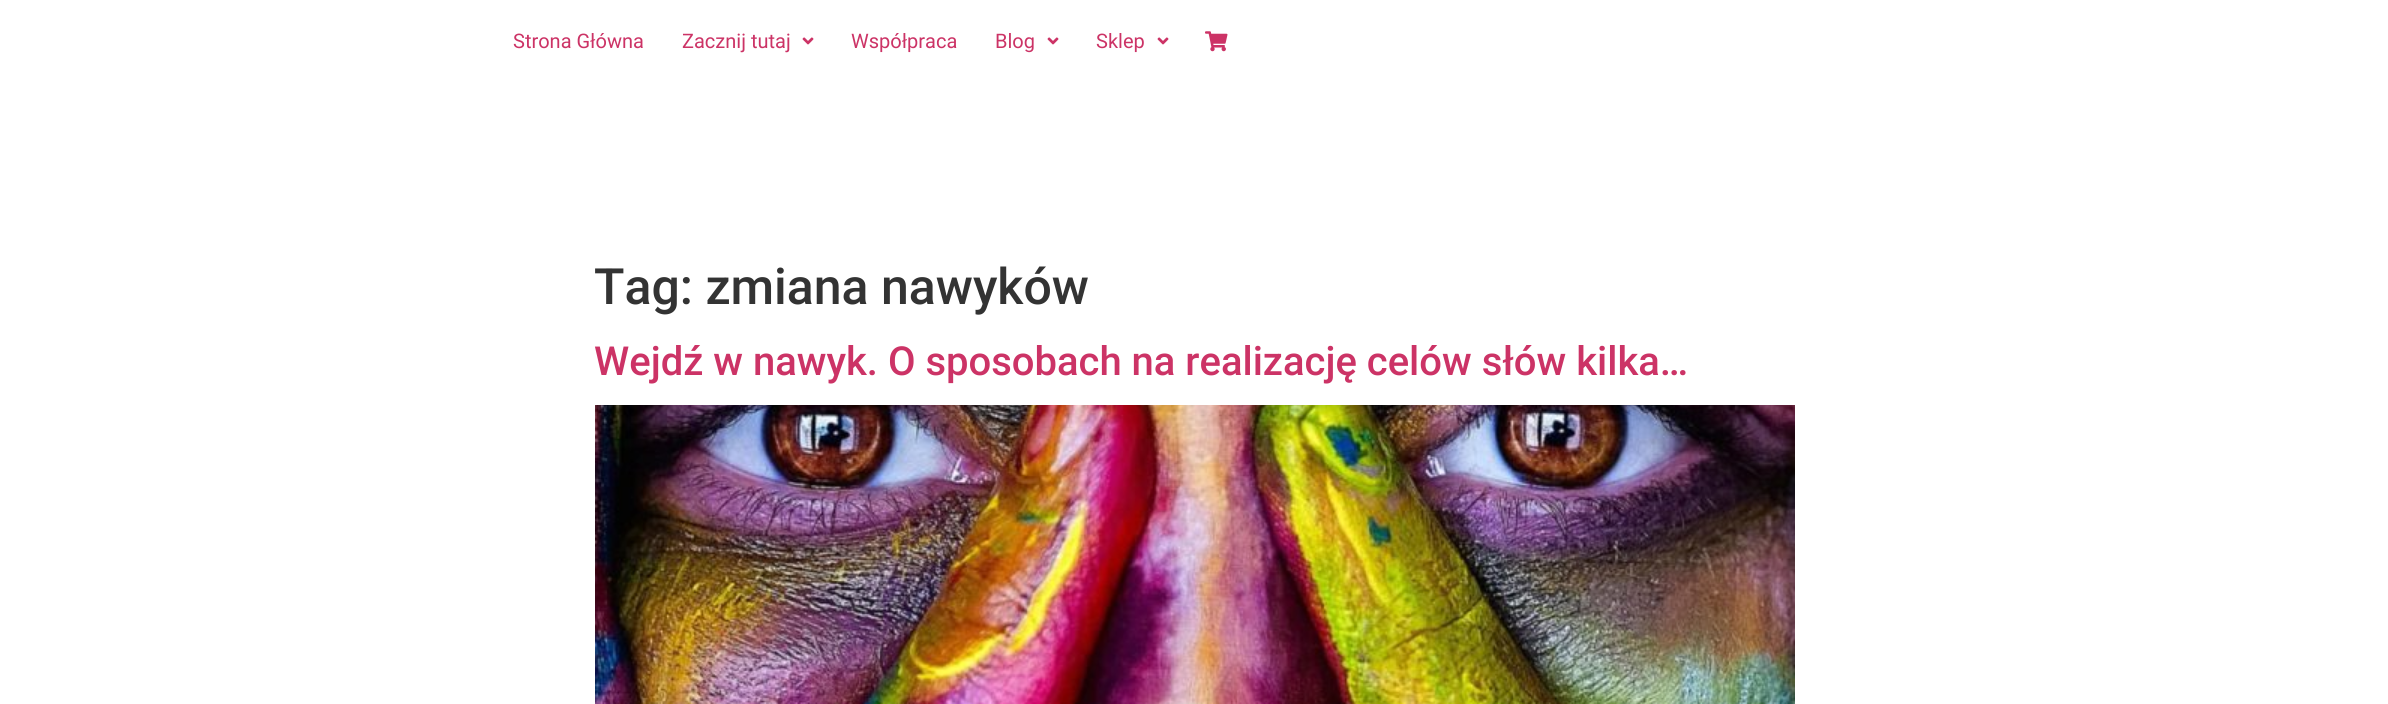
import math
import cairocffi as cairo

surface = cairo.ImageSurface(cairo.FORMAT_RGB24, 2388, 704)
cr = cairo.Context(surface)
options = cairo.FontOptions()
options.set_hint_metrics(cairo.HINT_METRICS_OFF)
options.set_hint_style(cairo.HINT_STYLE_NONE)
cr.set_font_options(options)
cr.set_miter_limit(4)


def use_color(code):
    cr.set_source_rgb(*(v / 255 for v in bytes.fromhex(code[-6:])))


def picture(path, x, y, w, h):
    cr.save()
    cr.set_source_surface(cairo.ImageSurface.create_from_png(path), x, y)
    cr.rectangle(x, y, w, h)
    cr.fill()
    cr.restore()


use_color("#ffffff")
cr.paint()
cr.select_font_face("Roboto")
cr.set_font_size(20)
use_color("#cc3366")
cr.move_to(513, 48)
cr.show_text("Strona Główna")
cr.move_to(682, 48)
cr.show_text("Zacznij tutaj")
picture("img1.png", 802, 37, 12, 8)
cr.move_to(851, 48)
cr.show_text("Współpraca")
cr.move_to(995, 48)
cr.show_text("Blog")
picture("img1.png", 1047, 37, 12, 8)
cr.move_to(1096, 48)
cr.show_text("Sklep")
picture("img1.png", 1157, 37, 12, 8)
picture("img2.png", 1205, 31, 23, 21)
cr.select_font_face("Roboto Medium")
cr.set_font_size(50)
use_color("#333333")
cr.move_to(594, 304)
cr.show_text("Tag: zmiana nawyków")
cr.set_font_size(40)
use_color("#cc3366")
cr.move_to(594, 375)
cr.show_text("Wejdź w nawyk. O sposobach na realizację celów słów kilka…")
picture("img3.png", 595, 405, 1200, 299)
surface.write_to_png("result.png")
